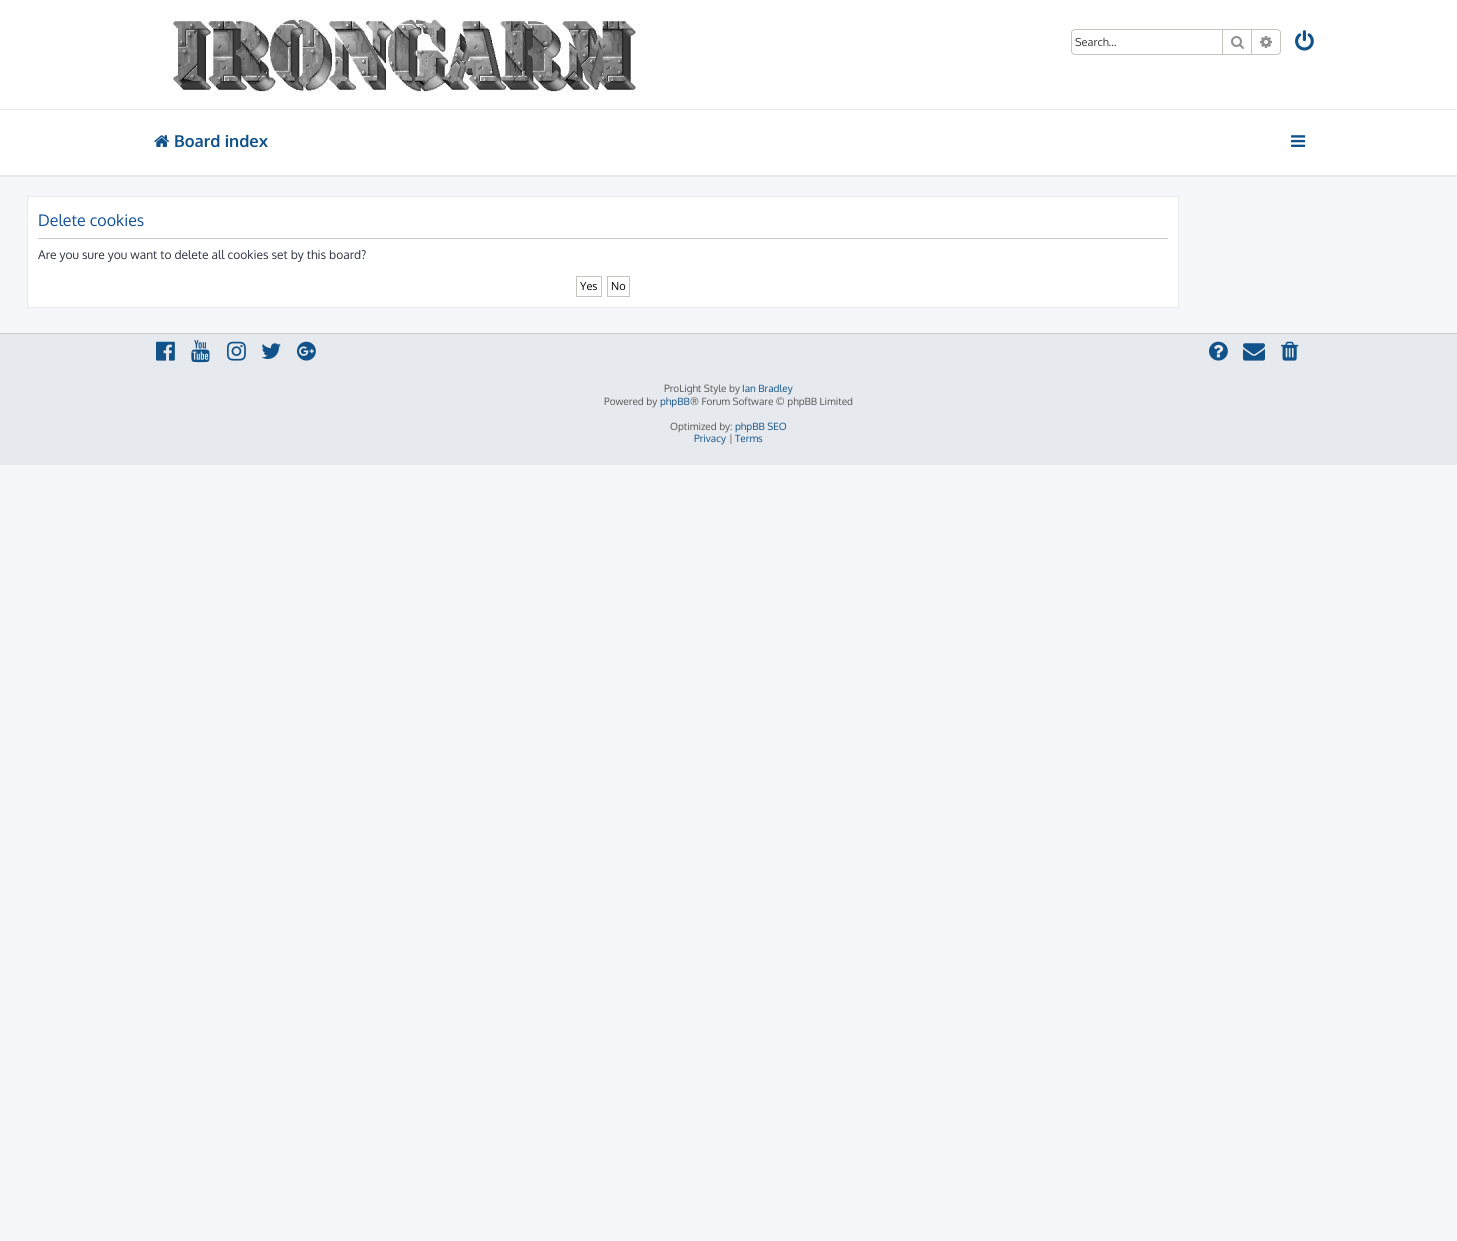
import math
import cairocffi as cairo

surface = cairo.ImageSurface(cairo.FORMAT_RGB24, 1457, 1241)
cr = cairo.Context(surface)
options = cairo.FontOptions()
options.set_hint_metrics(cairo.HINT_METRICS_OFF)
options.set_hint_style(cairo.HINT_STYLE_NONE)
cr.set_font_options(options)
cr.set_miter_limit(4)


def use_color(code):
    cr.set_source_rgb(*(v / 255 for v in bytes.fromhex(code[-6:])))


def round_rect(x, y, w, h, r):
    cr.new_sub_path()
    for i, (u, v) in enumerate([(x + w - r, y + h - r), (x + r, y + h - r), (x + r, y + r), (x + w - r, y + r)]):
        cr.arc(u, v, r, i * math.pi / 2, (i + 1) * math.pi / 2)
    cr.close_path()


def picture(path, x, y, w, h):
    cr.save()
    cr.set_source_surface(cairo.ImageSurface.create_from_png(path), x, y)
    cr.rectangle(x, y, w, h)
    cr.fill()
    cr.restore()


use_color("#f5f7fa")
cr.paint()
use_color("#ffffff")
cr.rectangle(0, 0, 1457, 109)
cr.fill()
use_color("#e6e9ed")
cr.rectangle(0, 109, 1457, 1)
cr.fill()
picture("img1.png", 168, 16, 472, 80)
round_rect(1071.5, 29.5, 209, 25, 3.5)
use_color("#c7c3bf")
cr.set_line_width(1)
cr.stroke()
use_color("#ffffff")
cr.new_path()
cr.move_to(1076, 30)
cr.line_to(1222, 30)
cr.line_to(1222, 54)
cr.line_to(1076, 54)
cr.curve_to(1074, 54, 1072, 52, 1072, 50)
cr.line_to(1072, 34)
cr.curve_to(1072, 32, 1074, 30, 1076, 30)
cr.close_path()
cr.fill()
cr.select_font_face("Oxygen")
cr.set_font_size(11)
use_color("#333333")
cr.move_to(1075, 46)
cr.show_text("Search…")
use_color("#c7c3bf")
cr.rectangle(1251, 30, 1, 24)
cr.fill()
cr.rectangle(1222, 30, 1, 24)
cr.fill()
picture("img2.png", 1231, 36, 13, 13)
use_color("#ffffff")
cr.new_path()
cr.move_to(1252, 30)
cr.line_to(1276, 30)
cr.curve_to(1278, 30, 1280, 32, 1280, 34)
cr.line_to(1280, 50)
cr.curve_to(1280, 52, 1278, 54, 1276, 54)
cr.line_to(1252, 54)
cr.close_path()
cr.fill()
picture("img3.png", 1260, 36, 12, 12)
picture("img4.png", 1295, 30, 19, 21)
cr.rectangle(0, 110, 1457, 65)
cr.fill()
use_color("#e6e9ed")
cr.rectangle(0, 175, 1457, 2)
cr.fill()
picture("img5.png", 154, 135, 15, 12)
cr.select_font_face("Oxygen", cairo.FONT_SLANT_NORMAL, cairo.FONT_WEIGHT_BOLD)
cr.set_font_size(16.5)
use_color("#105289")
cr.move_to(174, 147)
cr.show_text("Board index")
picture("img6.png", 1291, 135, 15, 12)
use_color("#ffffff")
cr.rectangle(27.5, 196.5, 1151, 111)
cr.fill_preserve()
use_color("#e6e9ed")
cr.stroke()
use_color("#cccccc")
cr.rectangle(38, 238, 1130, 1)
cr.fill()
cr.select_font_face("Oxygen")
cr.set_font_size(16)
use_color("#115098")
cr.move_to(38, 226)
cr.show_text("Delete cookies")
cr.set_font_size(12)
use_color("#28313f")
cr.move_to(38, 259)
cr.show_text("Are you sure you want to delete all cookies set by this board?")
cr.rectangle(576.5, 276.5, 25, 20)
use_color("#c7c3bf")
cr.stroke()
cr.set_font_size(11)
use_color("#000000")
cr.move_to(580, 290)
cr.show_text("Yes")
cr.rectangle(607.5, 276.5, 22, 20)
use_color("#c7c3bf")
cr.stroke()
use_color("#000000")
cr.move_to(611, 290)
cr.show_text("No")
use_color("#e6e9ed")
cr.rectangle(0, 334, 1457, 131)
cr.fill()
use_color("#cccccc")
cr.rectangle(0, 333, 1457, 1)
cr.fill()
picture("img7.png", 156, 341, 19, 20)
picture("img8.png", 191, 340, 19, 23)
picture("img9.png", 227, 341, 19, 20)
picture("img10.png", 261, 343, 20, 16)
picture("img11.png", 297, 341, 19, 20)
picture("img12.png", 1209, 341, 19, 20)
picture("img13.png", 1243, 343, 22, 18)
picture("img14.png", 1281, 341, 18, 20)
cr.set_font_size(10)
use_color("#555555")
cr.move_to(664, 392)
cr.show_text("ProLight Style by")
use_color("#105289")
cr.move_to(742, 392)
cr.show_text("Ian Bradley")
use_color("#555555")
cr.move_to(604, 405)
cr.show_text("Powered by")
use_color("#105289")
cr.move_to(660, 405)
cr.show_text("phpBB")
use_color("#555555")
cr.move_to(690, 405)
cr.show_text("® Forum Software © phpBB Limited")
cr.move_to(670, 430)
cr.show_text("Optimized by:")
use_color("#105289")
cr.move_to(735, 430)
cr.show_text("phpBB SEO")
cr.move_to(694, 442)
cr.show_text("Privacy")
use_color("#555555")
cr.move_to(729, 442)
cr.show_text("|")
use_color("#105289")
cr.move_to(735, 442)
cr.show_text("Terms")
surface.write_to_png("result.png")
